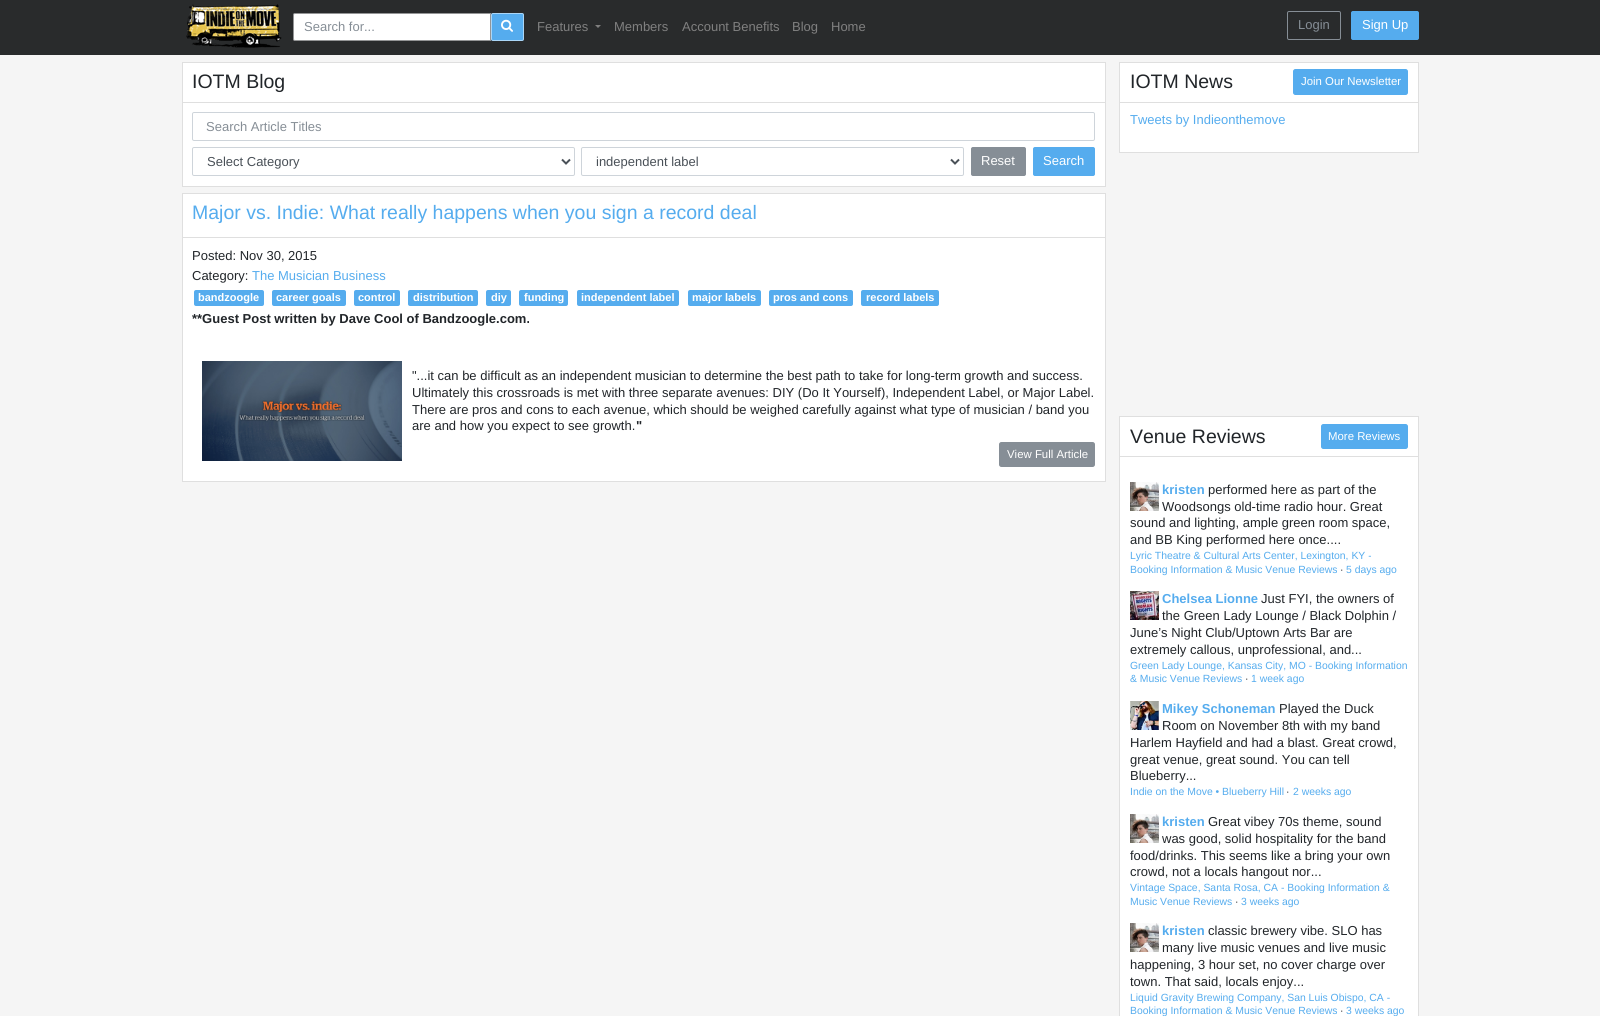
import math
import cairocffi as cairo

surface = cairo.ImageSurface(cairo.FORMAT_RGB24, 1600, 1016)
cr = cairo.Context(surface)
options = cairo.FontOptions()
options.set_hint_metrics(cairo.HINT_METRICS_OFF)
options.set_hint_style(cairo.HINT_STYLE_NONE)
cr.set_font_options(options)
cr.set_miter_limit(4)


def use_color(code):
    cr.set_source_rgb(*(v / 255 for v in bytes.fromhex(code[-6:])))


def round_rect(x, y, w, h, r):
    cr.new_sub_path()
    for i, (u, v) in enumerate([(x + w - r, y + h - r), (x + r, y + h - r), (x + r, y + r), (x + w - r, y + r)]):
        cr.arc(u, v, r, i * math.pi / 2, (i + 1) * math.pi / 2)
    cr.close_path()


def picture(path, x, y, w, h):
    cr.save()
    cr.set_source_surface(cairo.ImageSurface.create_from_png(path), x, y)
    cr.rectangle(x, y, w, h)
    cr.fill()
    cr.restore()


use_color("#f5f5f5")
cr.paint()
use_color("#292b2c")
cr.rectangle(0, 0, 1600, 55)
cr.fill()
picture("img1.png", 186, 4, 96, 44)
use_color("#ffffff")
cr.new_path()
cr.move_to(295, 13.5)
cr.line_to(490.5, 13.5)
cr.line_to(490.5, 40.5)
cr.line_to(295, 40.5)
cr.curve_to(294, 40.5, 293.5, 40, 293.5, 39)
cr.line_to(293.5, 15)
cr.curve_to(293.5, 14, 294, 13.5, 295, 13.5)
cr.close_path()
cr.fill_preserve()
use_color("#949596")
cr.set_line_width(1)
cr.stroke()
cr.select_font_face("Liberation Sans")
cr.set_font_size(13)
use_color("#868e96")
cr.move_to(304, 31)
cr.show_text("Search for...")
use_color("#55acee")
round_rect(491, 13, 33, 28, 2)
cr.fill()
round_rect(491.5, 13.5, 32, 27, 1.5)
cr.set_source_rgba(1, 1, 1, 0.5)
cr.stroke()
picture("img2.png", 501, 19, 12, 13)
use_color("#808080")
cr.move_to(537, 31)
cr.show_text("Features")
cr.new_path()
cr.move_to(595, 25)
cr.line_to(601, 25)
cr.line_to(598, 28)
cr.close_path()
cr.fill()
cr.move_to(614, 31)
cr.show_text("Members")
cr.move_to(682, 31)
cr.show_text("Account Benefits")
cr.move_to(792, 31)
cr.show_text("Blog")
cr.move_to(831, 31)
cr.show_text("Home")
round_rect(1287.5, 11.5, 53, 28, 1.5)
use_color("#868e96")
cr.stroke()
cr.move_to(1298, 29)
cr.show_text("Login")
use_color("#55acee")
round_rect(1351.5, 11.5, 67, 28, 1.5)
cr.fill_preserve()
cr.stroke()
use_color("#ffffff")
cr.move_to(1362, 29)
cr.show_text("Sign Up")
cr.rectangle(182.5, 62.5, 923, 124)
cr.fill_preserve()
use_color("#dfdfdf")
cr.stroke()
cr.rectangle(183, 102, 922, 1)
cr.fill()
cr.set_font_size(19.5)
use_color("#212529")
cr.move_to(192, 88)
cr.show_text("IOTM Blog")
round_rect(192.5, 112.5, 902, 28, 1.5)
use_color("#ced4da")
cr.stroke()
cr.set_font_size(13)
use_color("#868e96")
cr.move_to(206, 131)
cr.show_text("Search Article Titles")
round_rect(192.5, 147.5, 382, 28, 1.5)
use_color("#ced4da")
cr.stroke()
cr.new_path()
cr.move_to(562, 159.5)
cr.line_to(566, 163.5)
cr.line_to(570, 159.5)
use_color("#495057")
cr.set_line_width(2)
cr.stroke()
cr.move_to(207, 166)
cr.show_text("Select Category")
round_rect(581.5, 147.5, 382, 28, 1.5)
use_color("#ced4da")
cr.set_line_width(1)
cr.stroke()
cr.new_path()
cr.move_to(951, 159.5)
cr.line_to(955, 163.5)
cr.line_to(959, 159.5)
use_color("#495057")
cr.set_line_width(2)
cr.stroke()
cr.move_to(596, 166)
cr.show_text("independent label")
use_color("#868e96")
round_rect(971.5, 147.5, 54, 28, 1.5)
cr.fill_preserve()
cr.set_line_width(1)
cr.stroke()
use_color("#ffffff")
cr.move_to(981, 165)
cr.show_text("Reset")
use_color("#55acee")
round_rect(1033.5, 147.5, 61, 28, 1.5)
cr.fill_preserve()
cr.stroke()
use_color("#ffffff")
cr.move_to(1043, 165)
cr.show_text("Search")
cr.rectangle(182.5, 193.5, 923, 288)
cr.fill_preserve()
use_color("#dfdfdf")
cr.stroke()
cr.rectangle(183, 237, 922, 1)
cr.fill()
cr.set_font_size(19.5)
use_color("#55acee")
cr.move_to(192, 219)
cr.show_text("Major vs. Indie: What really happens when you sign a record deal")
cr.set_font_size(13)
use_color("#212529")
cr.move_to(192, 260)
cr.show_text("Posted: Nov 30, 2015")
cr.move_to(192, 280)
cr.show_text("Category:")
use_color("#55acee")
cr.move_to(252, 280)
cr.show_text("The Musician Business")
round_rect(194, 290, 70, 16, 2)
cr.fill()
cr.select_font_face("Liberation Sans", cairo.FONT_SLANT_NORMAL, cairo.FONT_WEIGHT_BOLD)
cr.set_font_size(11)
use_color("#ffffff")
cr.move_to(198, 301)
cr.show_text("bandzoogle")
use_color("#55acee")
round_rect(272, 290, 74, 16, 2)
cr.fill()
use_color("#ffffff")
cr.move_to(276, 301)
cr.show_text("career goals")
use_color("#55acee")
round_rect(354, 290, 46, 16, 2)
cr.fill()
use_color("#ffffff")
cr.move_to(358, 301)
cr.show_text("control")
use_color("#55acee")
round_rect(408, 290, 70, 16, 2)
cr.fill()
use_color("#ffffff")
cr.move_to(413, 301)
cr.show_text("distribution")
use_color("#55acee")
round_rect(486, 290, 25, 16, 2)
cr.fill()
use_color("#ffffff")
cr.move_to(491, 301)
cr.show_text("diy")
use_color("#55acee")
round_rect(519, 290, 49, 16, 2)
cr.fill()
use_color("#ffffff")
cr.move_to(524, 301)
cr.show_text("funding")
use_color("#55acee")
round_rect(577, 290, 102, 16, 2)
cr.fill()
use_color("#ffffff")
cr.move_to(581, 301)
cr.show_text("independent label")
use_color("#55acee")
round_rect(688, 290, 73, 16, 2)
cr.fill()
use_color("#ffffff")
cr.move_to(692, 301)
cr.show_text("major labels")
use_color("#55acee")
round_rect(769, 290, 84, 16, 2)
cr.fill()
use_color("#ffffff")
cr.move_to(773, 301)
cr.show_text("pros and cons")
use_color("#55acee")
round_rect(861, 290, 78, 16, 2)
cr.fill()
use_color("#ffffff")
cr.move_to(866, 301)
cr.show_text("record labels")
cr.set_font_size(13)
use_color("#212529")
cr.move_to(192, 323)
cr.show_text("**Guest Post written by Dave Cool of Bandzoogle.com.")
picture("img3.png", 202, 361, 200, 100)
cr.select_font_face("Liberation Sans")
cr.move_to(412, 380)
cr.show_text("\"...it can be difficult as an independent musician to determine the best path to take for long-term growth and success.")
cr.move_to(412, 397)
cr.show_text("Ultimately this crossroads is met with three separate avenues: DIY (Do It Yourself), Independent Label, or Major Label.")
cr.move_to(412, 414)
cr.show_text("There are pros and cons to each avenue, which should be weighed carefully against what type of musician / band you")
cr.move_to(412, 430)
cr.show_text("are and how you expect to see growth.")
cr.select_font_face("Liberation Sans", cairo.FONT_SLANT_NORMAL, cairo.FONT_WEIGHT_BOLD)
cr.move_to(636, 430)
cr.show_text("\"")
use_color("#868e96")
round_rect(999.5, 442.5, 95, 24, 2)
cr.fill_preserve()
cr.stroke()
cr.select_font_face("Liberation Sans")
cr.set_font_size(11.4)
use_color("#ffffff")
cr.move_to(1007, 458)
cr.show_text("View Full Article")
cr.rectangle(1119.5, 62.5, 299, 90)
cr.fill_preserve()
use_color("#dfdfdf")
cr.stroke()
cr.rectangle(1120, 102, 298, 1)
cr.fill()
cr.set_font_size(19.5)
use_color("#212529")
cr.move_to(1130, 88)
cr.show_text("IOTM News")
use_color("#55acee")
round_rect(1293.5, 69.5, 114, 25, 2)
cr.fill_preserve()
cr.stroke()
cr.set_font_size(11.4)
use_color("#ffffff")
cr.move_to(1301, 85)
cr.show_text("Join Our Newsletter")
cr.set_font_size(13)
use_color("#55acee")
cr.move_to(1130, 124)
cr.show_text("Tweets by Indieonthemove")
use_color("#ffffff")
cr.rectangle(1119.5, 416.5, 299, 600)
cr.fill_preserve()
use_color("#dfdfdf")
cr.stroke()
cr.rectangle(1120, 456, 298, 1)
cr.fill()
cr.set_font_size(19.5)
use_color("#212529")
cr.move_to(1130, 443)
cr.show_text("Venue Reviews")
use_color("#55acee")
round_rect(1321.5, 424.5, 86, 24, 2)
cr.fill_preserve()
cr.stroke()
cr.set_font_size(11.4)
use_color("#ffffff")
cr.move_to(1328, 440)
cr.show_text("More Reviews")
picture("img4.png", 1130, 482, 29, 29)
cr.select_font_face("Liberation Sans", cairo.FONT_SLANT_NORMAL, cairo.FONT_WEIGHT_BOLD)
cr.set_font_size(13)
use_color("#55acee")
cr.move_to(1162, 494)
cr.show_text("kristen")
cr.select_font_face("Liberation Sans")
use_color("#212529")
cr.move_to(1208, 494)
cr.show_text("performed here as part of the")
cr.move_to(1162, 511)
cr.show_text("Woodsongs old-time radio hour. Great")
cr.move_to(1130, 527)
cr.show_text("sound and lighting, ample green room space,")
cr.move_to(1130, 544)
cr.show_text("and BB King performed here once....")
cr.set_font_size(10.4)
use_color("#55acee")
cr.move_to(1130, 559)
cr.show_text("Lyric Theatre & Cultural Arts Center, Lexington, KY -")
cr.move_to(1130, 573)
cr.show_text("Booking Information & Music Venue Reviews")
use_color("#212529")
cr.move_to(1340, 573)
cr.show_text("·")
use_color("#55acee")
cr.move_to(1346, 573)
cr.show_text("5 days ago")
picture("img5.png", 1130, 591, 29, 29)
cr.select_font_face("Liberation Sans", cairo.FONT_SLANT_NORMAL, cairo.FONT_WEIGHT_BOLD)
cr.set_font_size(13)
cr.move_to(1162, 603)
cr.show_text("Chelsea Lionne")
cr.select_font_face("Liberation Sans")
use_color("#212529")
cr.move_to(1261, 603)
cr.show_text("Just FYI, the owners of")
cr.move_to(1162, 620)
cr.show_text("the Green Lady Lounge / Black Dolphin /")
cr.move_to(1130, 637)
cr.show_text("June’s Night Club/Uptown Arts Bar are")
cr.move_to(1130, 654)
cr.show_text("extremely callous, unprofessional, and...")
cr.set_font_size(10.4)
use_color("#55acee")
cr.move_to(1130, 669)
cr.show_text("Green Lady Lounge, Kansas City, MO - Booking Information")
cr.move_to(1130, 682)
cr.show_text("& Music Venue Reviews")
use_color("#212529")
cr.move_to(1245, 682)
cr.show_text("·")
use_color("#55acee")
cr.move_to(1251, 682)
cr.show_text("1 week ago")
picture("img6.png", 1130, 701, 29, 29)
cr.select_font_face("Liberation Sans", cairo.FONT_SLANT_NORMAL, cairo.FONT_WEIGHT_BOLD)
cr.set_font_size(13)
cr.move_to(1162, 713)
cr.show_text("Mikey Schoneman")
cr.select_font_face("Liberation Sans")
use_color("#212529")
cr.move_to(1279, 713)
cr.show_text("Played the Duck")
cr.move_to(1162, 730)
cr.show_text("Room on November 8th with my band")
cr.move_to(1130, 747)
cr.show_text("Harlem Hayfield and had a blast. Great crowd,")
cr.move_to(1130, 764)
cr.show_text("great venue, great sound. You can tell")
cr.move_to(1130, 780)
cr.show_text("Blueberry...")
cr.set_font_size(10.4)
use_color("#55acee")
cr.move_to(1130, 795)
cr.show_text("Indie on the Move • Blueberry Hill")
use_color("#212529")
cr.move_to(1286, 795)
cr.show_text("·")
use_color("#55acee")
cr.move_to(1293, 795)
cr.show_text("2 weeks ago")
picture("img4.png", 1130, 814, 29, 29)
cr.select_font_face("Liberation Sans", cairo.FONT_SLANT_NORMAL, cairo.FONT_WEIGHT_BOLD)
cr.set_font_size(13)
cr.move_to(1162, 826)
cr.show_text("kristen")
cr.select_font_face("Liberation Sans")
use_color("#212529")
cr.move_to(1208, 826)
cr.show_text("Great vibey 70s theme, sound")
cr.move_to(1162, 843)
cr.show_text("was good, solid hospitality for the band")
cr.move_to(1130, 860)
cr.show_text("food/drinks. This seems like a bring your own")
cr.move_to(1130, 876)
cr.show_text("crowd, not a locals hangout nor...")
cr.set_font_size(10.4)
use_color("#55acee")
cr.move_to(1130, 891)
cr.show_text("Vintage Space, Santa Rosa, CA - Booking Information &")
cr.move_to(1130, 905)
cr.show_text("Music Venue Reviews")
use_color("#212529")
cr.move_to(1235, 905)
cr.show_text("·")
use_color("#55acee")
cr.move_to(1241, 905)
cr.show_text("3 weeks ago")
picture("img4.png", 1130, 923, 29, 29)
cr.select_font_face("Liberation Sans", cairo.FONT_SLANT_NORMAL, cairo.FONT_WEIGHT_BOLD)
cr.set_font_size(13)
cr.move_to(1162, 935)
cr.show_text("kristen")
cr.select_font_face("Liberation Sans")
use_color("#212529")
cr.move_to(1208, 935)
cr.show_text("classic brewery vibe. SLO has")
cr.move_to(1162, 952)
cr.show_text("many live music venues and live music")
cr.move_to(1130, 969)
cr.show_text("happening, 3 hour set, no cover charge over")
cr.move_to(1130, 986)
cr.show_text("town. That said, locals enjoy...")
cr.set_font_size(10.4)
use_color("#55acee")
cr.move_to(1130, 1001)
cr.show_text("Liquid Gravity Brewing Company, San Luis Obispo, CA -")
cr.move_to(1130, 1014)
cr.show_text("Booking Information & Music Venue Reviews")
use_color("#212529")
cr.move_to(1340, 1014)
cr.show_text("·")
use_color("#55acee")
cr.move_to(1346, 1014)
cr.show_text("3 weeks ago")
surface.write_to_png("result.png")
